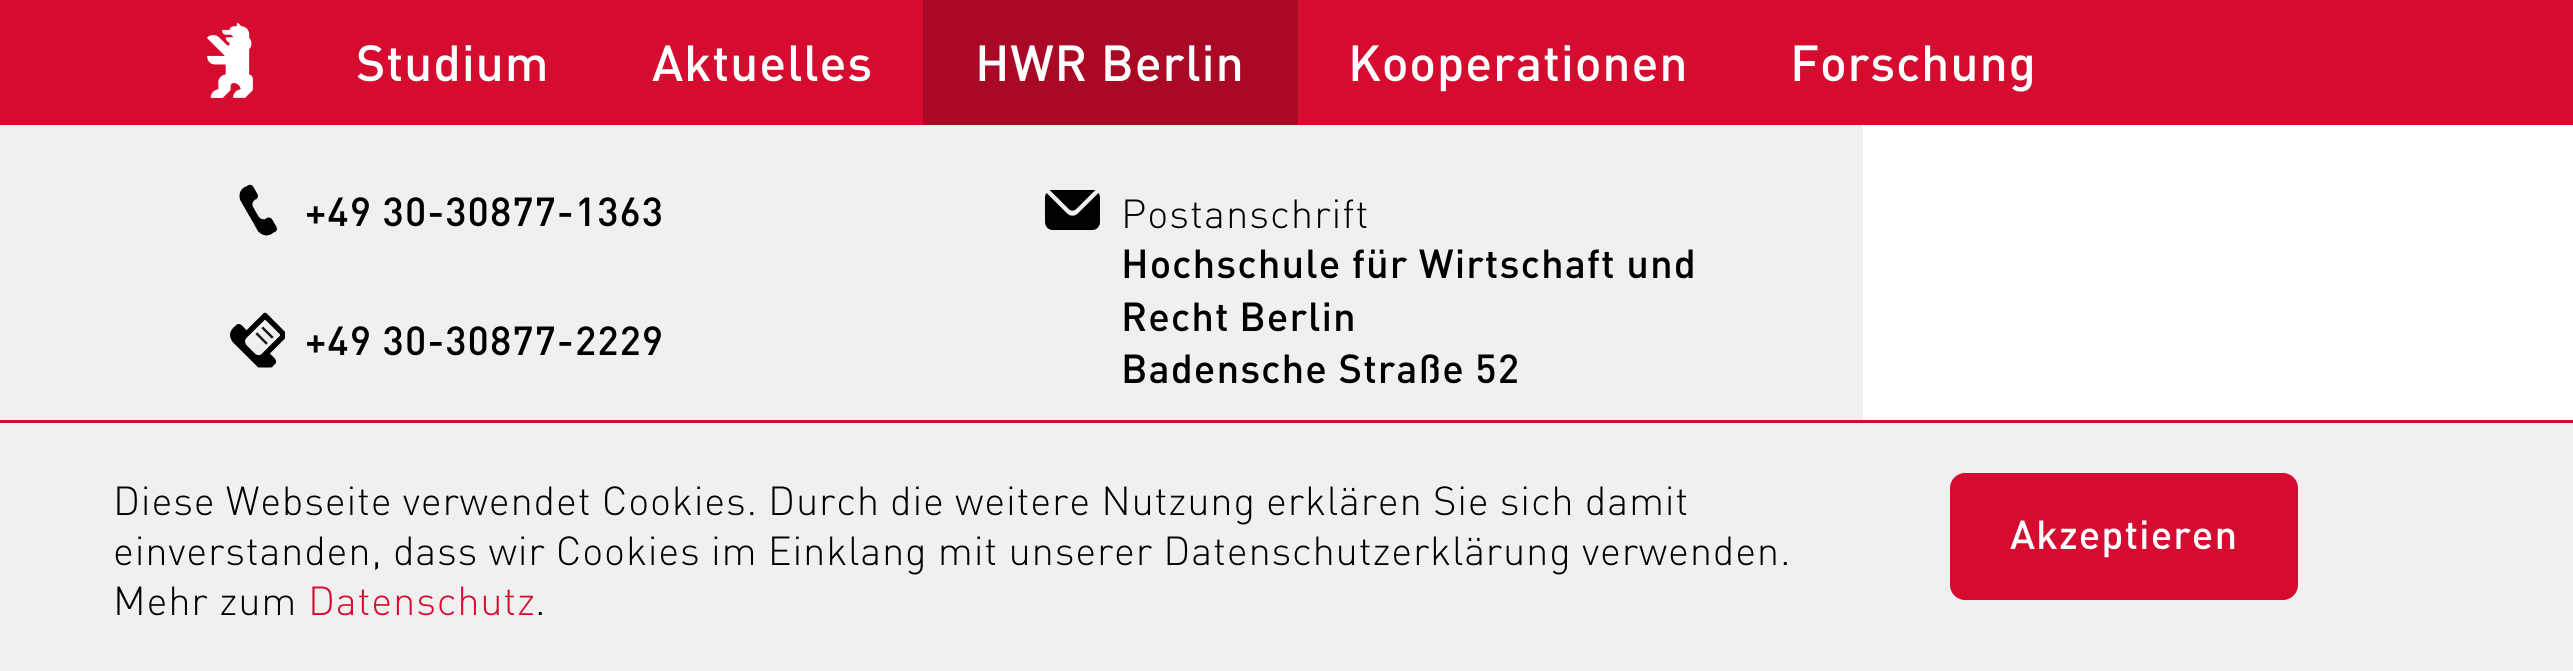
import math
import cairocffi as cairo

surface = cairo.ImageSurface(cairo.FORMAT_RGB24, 2573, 671)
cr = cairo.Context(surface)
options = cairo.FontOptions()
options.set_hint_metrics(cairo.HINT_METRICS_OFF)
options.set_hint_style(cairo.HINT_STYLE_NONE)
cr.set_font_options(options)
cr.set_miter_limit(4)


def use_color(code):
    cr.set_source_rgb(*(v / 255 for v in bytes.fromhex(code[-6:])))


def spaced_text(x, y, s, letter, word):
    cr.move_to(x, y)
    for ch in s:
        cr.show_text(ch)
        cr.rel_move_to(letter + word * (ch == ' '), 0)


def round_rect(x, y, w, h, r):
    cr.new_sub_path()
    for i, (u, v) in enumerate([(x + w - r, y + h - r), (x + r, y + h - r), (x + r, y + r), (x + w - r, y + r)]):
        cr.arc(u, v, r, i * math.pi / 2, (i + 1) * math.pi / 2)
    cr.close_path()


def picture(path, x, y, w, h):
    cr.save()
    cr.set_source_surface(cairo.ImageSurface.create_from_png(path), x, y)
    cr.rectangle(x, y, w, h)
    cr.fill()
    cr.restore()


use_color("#ffffff")
cr.paint()
use_color("#d50c2f")
cr.rectangle(0, 0, 2573, 125)
cr.fill()
picture("img1.png", 207, 23, 46, 75)
cr.select_font_face("DIN Medium")
cr.set_font_size(50)
use_color("#ffffff")
spaced_text(356, 81, "Studium", 0.75, 0)
spaced_text(652, 81, "Aktuelles", 0.75, 0)
use_color("#aa0925")
cr.rectangle(923, 0, 375, 125)
cr.fill()
use_color("#ffffff")
spaced_text(975, 81, "HWR Berlin", 0.75, 0)
spaced_text(1348, 81, "Kooperationen", 0.75, 0)
spaced_text(1790, 81, "Forschung", 0.75, 0)
use_color("#f0f0f1")
cr.rectangle(0, 125, 1863, 295)
cr.fill()
picture("img2.png", 239, 184, 38, 52)
cr.set_font_size(40)
use_color("#000000")
spaced_text(305, 226, "+49 30-30877-1363", 1, 0)
picture("img3.png", 230, 312, 55, 56)
spaced_text(305, 355, "+49 30-30877-2229", 1, 0)
picture("img4.png", 1045, 190, 55, 40)
cr.select_font_face("DIN Light")
spaced_text(1121, 228, "Postanschrift", 1, 0)
cr.select_font_face("DIN Medium")
spaced_text(1121, 278, "Hochschule für Wirtschaft und", 1, 0)
spaced_text(1121, 331, "Recht Berlin", 1, -1)
spaced_text(1121, 383, "Badensche Straße 52", 1, 0)
use_color("#f0f0f1")
cr.rectangle(0, 423, 2573, 248)
cr.fill()
use_color("#d50c2f")
cr.rectangle(0, 420, 2573, 3)
cr.fill()
cr.select_font_face("DIN Light")
use_color("#000000")
spaced_text(113, 515, "Diese Webseite verwendet Cookies. Durch die weitere Nutzung erklären Sie sich damit", 0.75, -0.6)
spaced_text(113, 565, "einverstanden, dass wir Cookies im Einklang mit unserer Datenschutzerklärung verwenden.", 0.75, -0.5)
spaced_text(113, 615, "Mehr zum", 0.75, 0)
use_color("#d50c2f")
spaced_text(308, 615, "Datenschutz", 0.75, 0)
use_color("#000000")
spaced_text(535, 615, ".", 0.75, 0)
use_color("#d50c2f")
round_rect(1950, 473, 348, 127, 15)
cr.fill()
cr.select_font_face("DIN Medium")
use_color("#ffffff")
spaced_text(2010, 549, "Akzeptieren", 1, 0)
surface.write_to_png("result.png")
